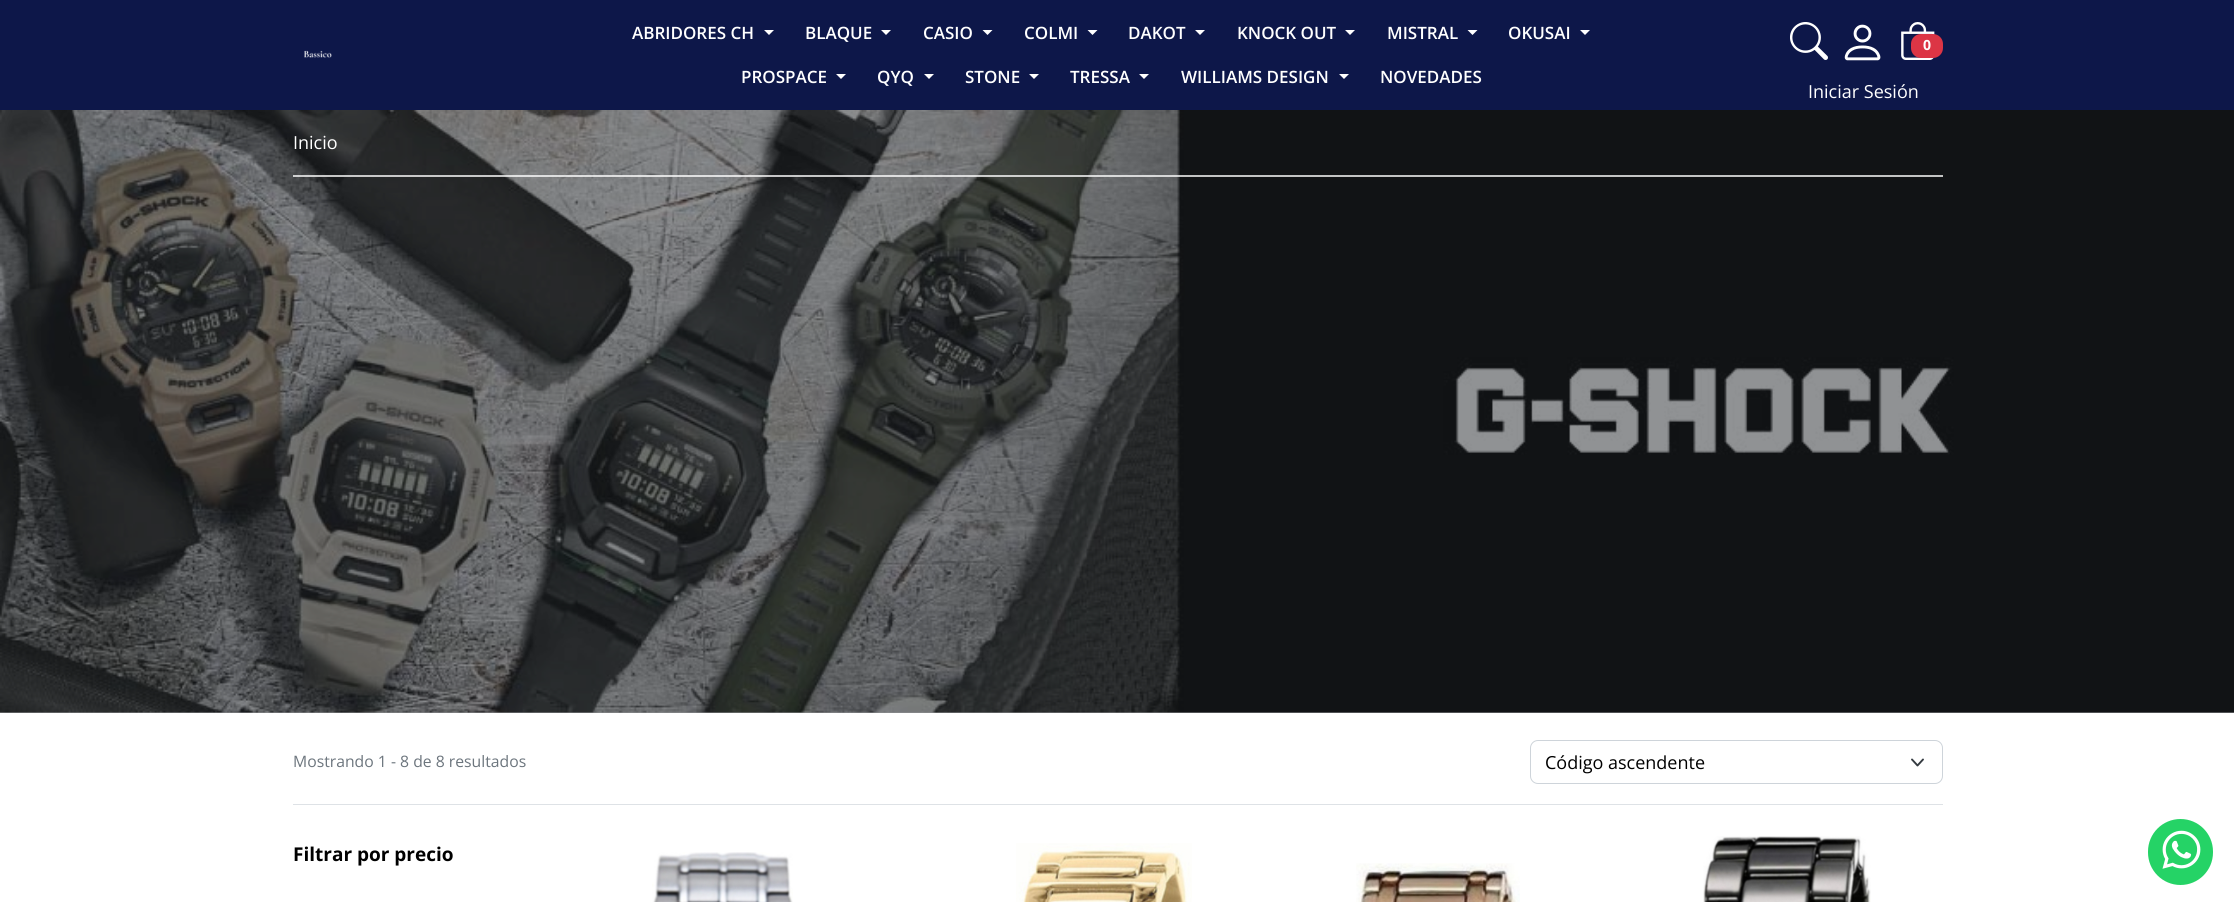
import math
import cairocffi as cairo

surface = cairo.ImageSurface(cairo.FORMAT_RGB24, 2234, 902)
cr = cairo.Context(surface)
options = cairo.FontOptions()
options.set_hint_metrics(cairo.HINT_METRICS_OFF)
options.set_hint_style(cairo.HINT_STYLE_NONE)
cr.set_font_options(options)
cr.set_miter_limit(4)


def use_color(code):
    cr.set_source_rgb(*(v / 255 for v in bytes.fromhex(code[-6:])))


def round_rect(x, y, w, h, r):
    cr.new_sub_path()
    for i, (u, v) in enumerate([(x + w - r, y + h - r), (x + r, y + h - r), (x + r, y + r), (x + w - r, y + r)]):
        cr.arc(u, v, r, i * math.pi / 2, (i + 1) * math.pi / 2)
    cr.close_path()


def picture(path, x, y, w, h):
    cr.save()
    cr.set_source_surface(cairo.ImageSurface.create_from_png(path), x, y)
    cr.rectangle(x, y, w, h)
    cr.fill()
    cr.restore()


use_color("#ffffff")
cr.paint()
use_color("#909294")
cr.rectangle(0, 712, 2234, 1)
cr.fill()
use_color("#0d1749")
cr.rectangle(0, 0, 2234, 110)
cr.fill()
picture("img1.png", 304, 50, 28, 8)
cr.select_font_face("Open Sans SemiBold")
cr.set_font_size(17)
use_color("#ffffff")
cr.move_to(632, 39)
cr.show_text("ABRIDORES CH")
cr.new_path()
cr.move_to(764, 30)
cr.line_to(774, 30)
cr.line_to(769, 35)
cr.close_path()
cr.fill()
cr.move_to(805, 39)
cr.show_text("BLAQUE")
cr.new_path()
cr.move_to(881, 30)
cr.line_to(891, 30)
cr.line_to(886, 35)
cr.close_path()
cr.fill()
cr.move_to(923, 39)
cr.show_text("CASIO")
cr.new_path()
cr.move_to(982.5, 30)
cr.line_to(992.5, 30)
cr.line_to(987.5, 35)
cr.close_path()
cr.fill()
cr.move_to(1024, 39)
cr.show_text("COLMI")
cr.new_path()
cr.move_to(1087.5, 30)
cr.line_to(1097.5, 30)
cr.line_to(1092.5, 35)
cr.close_path()
cr.fill()
cr.move_to(1128, 39)
cr.show_text("DAKOT")
cr.new_path()
cr.move_to(1195, 30)
cr.line_to(1205, 30)
cr.line_to(1200, 35)
cr.close_path()
cr.fill()
cr.move_to(1237, 39)
cr.show_text("KNOCK OUT")
cr.new_path()
cr.move_to(1345, 30)
cr.line_to(1355, 30)
cr.line_to(1350, 35)
cr.close_path()
cr.fill()
cr.move_to(1387, 39)
cr.show_text("MISTRAL")
cr.new_path()
cr.move_to(1467.5, 30)
cr.line_to(1477.5, 30)
cr.line_to(1472.5, 35)
cr.close_path()
cr.fill()
cr.move_to(1508, 39)
cr.show_text("OKUSAI")
cr.new_path()
cr.move_to(1580, 30)
cr.line_to(1590, 30)
cr.line_to(1585, 35)
cr.close_path()
cr.fill()
cr.move_to(741, 83)
cr.show_text("PROSPACE")
cr.new_path()
cr.move_to(836, 74)
cr.line_to(846, 74)
cr.line_to(841, 79)
cr.close_path()
cr.fill()
cr.move_to(877, 83)
cr.show_text("QYQ")
cr.new_path()
cr.move_to(924, 74)
cr.line_to(934, 74)
cr.line_to(929, 79)
cr.close_path()
cr.fill()
cr.move_to(965, 83)
cr.show_text("STONE")
cr.new_path()
cr.move_to(1029, 74)
cr.line_to(1039, 74)
cr.line_to(1034, 79)
cr.close_path()
cr.fill()
cr.move_to(1070, 83)
cr.show_text("TRESSA")
cr.new_path()
cr.move_to(1139, 74)
cr.line_to(1149, 74)
cr.line_to(1144, 79)
cr.close_path()
cr.fill()
cr.move_to(1181, 83)
cr.show_text("WILLIAMS DESIGN")
cr.new_path()
cr.move_to(1339, 74)
cr.line_to(1349, 74)
cr.line_to(1344, 79)
cr.close_path()
cr.fill()
cr.move_to(1380, 83)
cr.show_text("NOVEDADES")
picture("img2.png", 1790, 22, 38, 38)
picture("img3.png", 1844, 24, 37, 37)
picture("img4.png", 1901, 22, 34, 38)
use_color("#dc3545")
round_rect(1911, 34, 32, 24, 10)
cr.fill()
cr.select_font_face("Open Sans", cairo.FONT_SLANT_NORMAL, cairo.FONT_WEIGHT_BOLD)
cr.set_font_size(14)
use_color("#ffffff")
cr.move_to(1923, 50)
cr.show_text("0")
cr.select_font_face("Open Sans")
cr.set_font_size(18)
cr.move_to(1808, 98)
cr.show_text("Iniciar Sesión")
picture("img5.png", 0, 110, 2234, 603)
cr.move_to(293, 149)
cr.show_text("Inicio")
cr.set_source_rgba(1, 1, 1, 0.75)
cr.rectangle(293, 175, 1650, 1)
cr.fill()
cr.rectangle(293, 176, 1650, 1)
cr.fill()
use_color("#dee2e6")
cr.rectangle(293, 804, 1650, 1)
cr.fill()
cr.set_font_size(15.75)
use_color("#6c757d")
cr.move_to(293, 767)
cr.show_text("Mostrando 1 - 8 de 8 resultados")
cr.new_path()
cr.move_to(1912, 759.5)
cr.line_to(1917.5, 765.5)
cr.line_to(1923, 759.5)
use_color("#343a40")
cr.set_line_width(1.9)
cr.set_line_cap(cairo.LINE_CAP_ROUND)
cr.set_line_join(cairo.LINE_JOIN_ROUND)
cr.stroke()
round_rect(1530.5, 740.5, 412, 43, 7.5)
use_color("#ced4da")
cr.set_line_width(1)
cr.set_line_cap(cairo.LINE_CAP_BUTT)
cr.set_line_join(cairo.LINE_JOIN_MITER)
cr.stroke()
cr.set_font_size(18)
use_color("#000000")
cr.move_to(1545, 769)
cr.show_text("Código ascendente")
cr.select_font_face("Open Sans", cairo.FONT_SLANT_NORMAL, cairo.FONT_WEIGHT_BOLD)
cr.set_font_size(19)
cr.move_to(293, 861)
cr.show_text("Filtrar por precio")
picture("img6.png", 652, 852, 141, 50)
picture("img7.png", 1016, 843, 176, 59)
picture("img8.png", 1356, 863, 164, 39)
picture("img9.png", 1703, 836, 168, 66)
use_color("#25d366")
round_rect(2148, 819, 65, 66, 32.5)
cr.fill()
picture("img10.png", 2162, 830, 39, 39)
surface.write_to_png("result.png")
